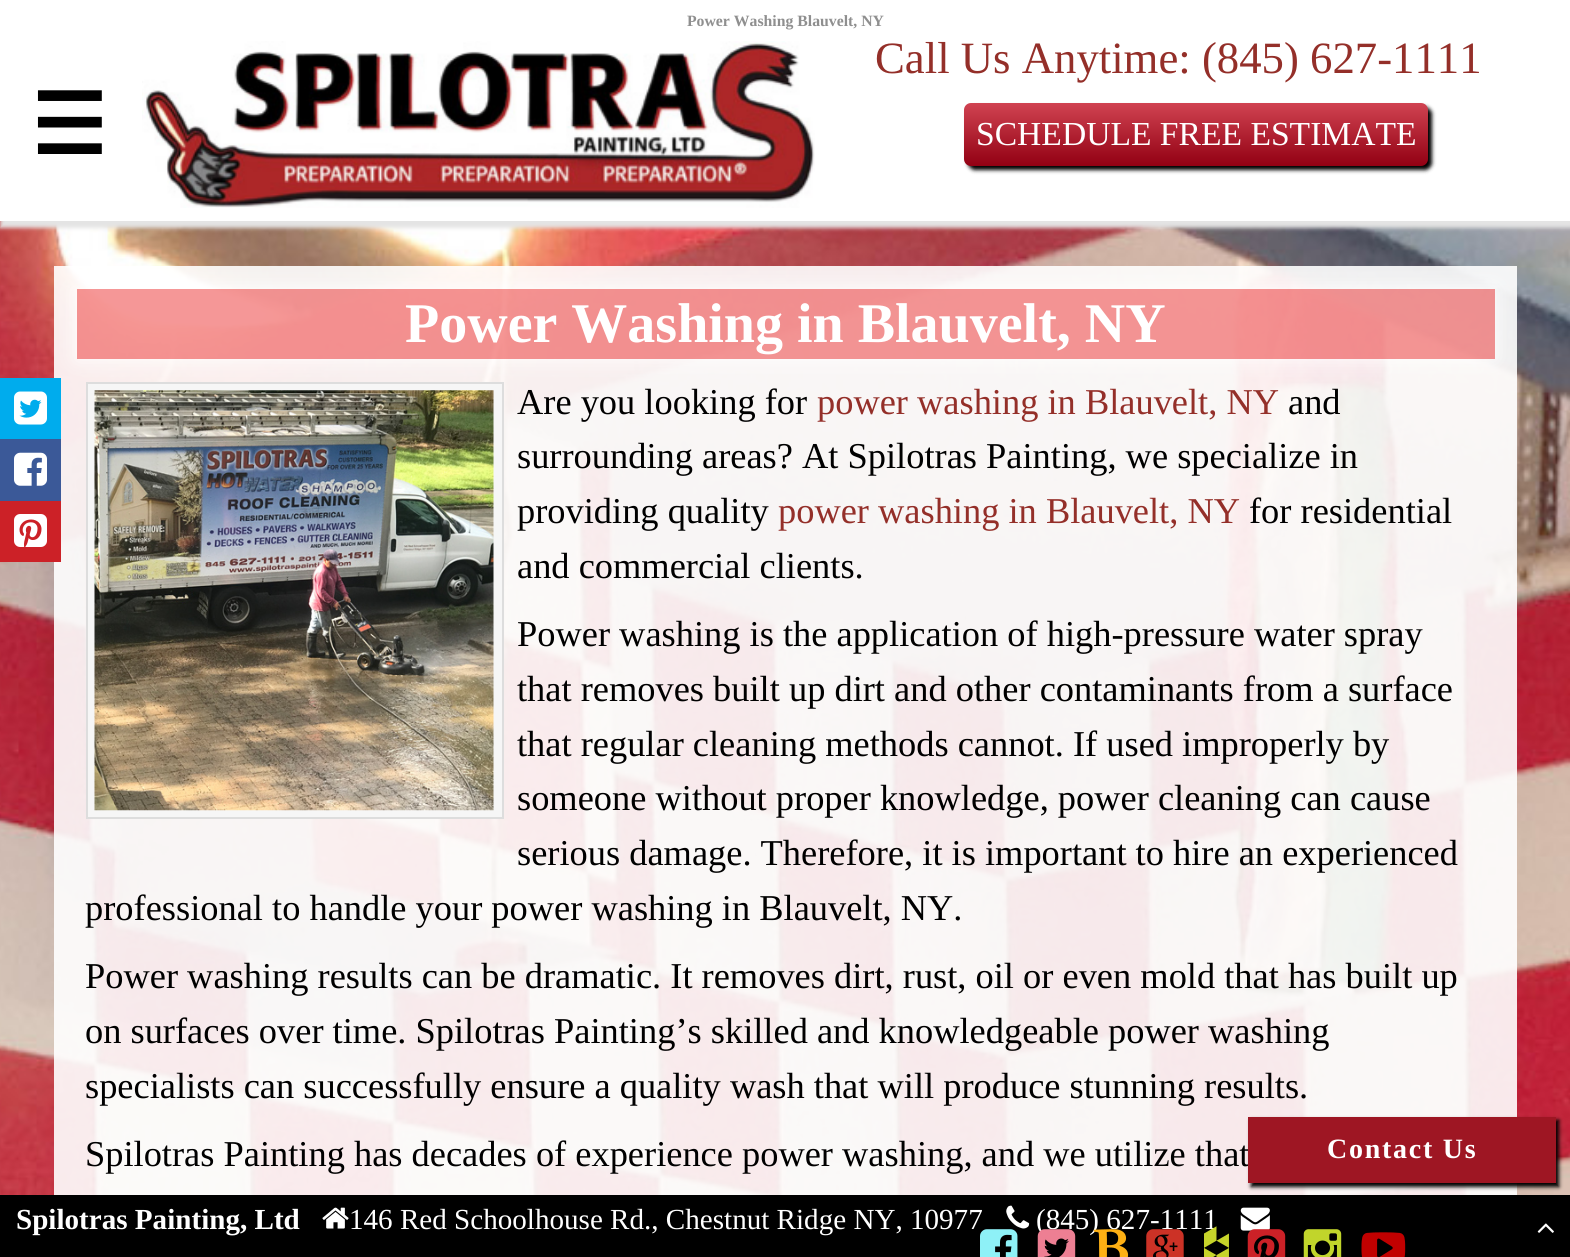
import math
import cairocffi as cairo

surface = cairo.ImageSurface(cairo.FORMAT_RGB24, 1570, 1257)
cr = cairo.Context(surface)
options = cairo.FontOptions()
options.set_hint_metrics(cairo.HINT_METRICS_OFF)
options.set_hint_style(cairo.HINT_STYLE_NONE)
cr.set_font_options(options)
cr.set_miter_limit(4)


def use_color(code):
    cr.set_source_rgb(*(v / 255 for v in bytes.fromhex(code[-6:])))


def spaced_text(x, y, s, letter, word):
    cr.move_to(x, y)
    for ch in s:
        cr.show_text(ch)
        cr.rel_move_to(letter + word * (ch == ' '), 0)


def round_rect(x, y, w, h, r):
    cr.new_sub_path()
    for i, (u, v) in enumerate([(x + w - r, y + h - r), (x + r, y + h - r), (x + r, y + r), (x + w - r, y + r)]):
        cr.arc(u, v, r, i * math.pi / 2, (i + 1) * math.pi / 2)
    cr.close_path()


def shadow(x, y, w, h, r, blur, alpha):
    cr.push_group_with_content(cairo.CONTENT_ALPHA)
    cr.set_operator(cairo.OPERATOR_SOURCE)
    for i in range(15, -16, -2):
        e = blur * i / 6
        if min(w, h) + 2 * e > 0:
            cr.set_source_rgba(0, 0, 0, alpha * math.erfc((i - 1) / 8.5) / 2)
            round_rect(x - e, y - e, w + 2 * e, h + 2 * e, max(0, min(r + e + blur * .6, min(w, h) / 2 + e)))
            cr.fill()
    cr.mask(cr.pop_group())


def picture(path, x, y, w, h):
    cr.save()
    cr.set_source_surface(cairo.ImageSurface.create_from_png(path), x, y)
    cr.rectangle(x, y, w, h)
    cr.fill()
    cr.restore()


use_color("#ffffff")
cr.paint()
picture("img1.png", 0, 221, 1570, 974)
use_color("#e4e4e4")
shadow(0, -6, 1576, 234, 0, 2, 1)
use_color("#ffffff")
cr.rectangle(0, 0, 1570, 221)
cr.fill()
cr.select_font_face("Liberation Serif", cairo.FONT_SLANT_NORMAL, cairo.FONT_WEIGHT_BOLD)
cr.set_font_size(15.75)
use_color("#8f8f8f")
cr.move_to(687, 26)
cr.show_text("Power Washing Blauvelt, NY")
cr.select_font_face("DejaVu Sans", cairo.FONT_SLANT_NORMAL, cairo.FONT_WEIGHT_BOLD)
cr.set_font_size(84)
use_color("#000000")
cr.move_to(31, 154)
cr.show_text("☰")
picture("img2.png", 142, 41, 673, 167)
cr.select_font_face("Liberation Serif")
cr.set_font_size(44.75)
use_color("#942f29")
cr.move_to(875, 73)
cr.show_text("Call Us Anytime: (845) 627-1111")
use_color("#000000")
shadow(968, 107, 464, 63, 7, 2, 1)
gradient = cairo.LinearGradient(1196, 103, 1196, 166)
gradient.add_color_stop_rgba(0, 0.816, 0.263, 0.318, 1)
gradient.add_color_stop_rgba(1, 0.573, 0, 0.075, 1)
cr.set_source(gradient)
round_rect(964, 103, 464, 63, 7)
cr.fill()
cr.set_font_size(33.6)
use_color("#ffffff")
cr.move_to(976, 145)
cr.show_text("SCHEDULE FREE ESTIMATE")
cr.set_source_rgba(1, 1, 1, 0.9)
cr.rectangle(54, 266, 1463, 929)
cr.fill()
cr.save()
cr.set_fill_rule(cairo.FILL_RULE_EVEN_ODD)
cr.new_path()
cr.move_to(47, 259)
cr.line_to(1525, 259)
cr.line_to(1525, 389)
cr.line_to(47, 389)
cr.close_path()
cr.move_to(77, 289)
cr.line_to(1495, 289)
cr.line_to(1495, 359)
cr.line_to(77, 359)
cr.close_path()
cr.clip()
use_color("#ffffff")
shadow(77, 289, 1418, 70, 0, 9.5, 1)
cr.restore()
use_color("#00aced")
cr.rectangle(0, 378, 61, 61)
cr.fill()
picture("img3.png", 14, 391, 33, 34)
use_color("#3b5998")
cr.rectangle(0, 439, 61, 62)
cr.fill()
picture("img4.png", 14, 452, 33, 34)
use_color("#cc2127")
cr.rectangle(0, 501, 61, 61)
cr.fill()
picture("img5.png", 14, 514, 33, 33)
cr.set_source_rgba(0.925, 0.188, 0.188, 0.5)
cr.rectangle(77, 289, 1418, 70)
cr.fill()
cr.select_font_face("Liberation Serif", cairo.FONT_SLANT_NORMAL, cairo.FONT_WEIGHT_BOLD)
cr.set_font_size(56)
use_color("#ffffff")
cr.move_to(405, 342)
cr.show_text("Power Washing in Blauvelt, NY")
use_color("#f6f6f6")
cr.rectangle(87, 383, 416, 435)
cr.fill_preserve()
use_color("#dddddd")
cr.stroke()
picture("img6.png", 94, 390, 400, 421)
cr.select_font_face("Liberation Serif")
cr.set_font_size(36.4)
use_color("#000000")
cr.move_to(517, 414)
cr.show_text("Are you looking for")
use_color("#942f29")
cr.move_to(817, 414)
cr.show_text("power washing in Blauvelt, NY")
use_color("#000000")
cr.move_to(1288, 414)
cr.show_text("and")
cr.move_to(517, 468)
cr.show_text("surrounding areas? At Spilotras Painting, we specialize in")
cr.move_to(517, 523)
cr.show_text("providing quality")
use_color("#942f29")
cr.move_to(778, 523)
cr.show_text("power washing in Blauvelt, NY")
use_color("#000000")
cr.move_to(1249, 523)
cr.show_text("for residential")
cr.move_to(517, 578)
cr.show_text("and commercial clients.")
cr.move_to(517, 646)
cr.show_text("Power washing is the application of high-pressure water spray")
cr.move_to(517, 701)
cr.show_text("that removes built up dirt and other contaminants from a surface")
cr.move_to(517, 756)
cr.show_text("that regular cleaning methods cannot. If used improperly by")
cr.move_to(517, 810)
cr.show_text("someone without proper knowledge, power cleaning can cause")
cr.move_to(517, 865)
cr.show_text("serious damage. Therefore, it is important to hire an experienced")
cr.move_to(85, 920)
cr.show_text("professional to handle your power washing in Blauvelt, NY.")
cr.move_to(85, 988)
cr.show_text("Power washing results can be dramatic. It removes dirt, rust, oil or even mold that has built up")
cr.move_to(85, 1043)
cr.show_text("on surfaces over time. Spilotras Painting’s skilled and knowledgeable power washing")
cr.move_to(85, 1098)
cr.show_text("specialists can successfully ensure a quality wash that will produce stunning results.")
cr.move_to(85, 1166)
cr.show_text("Spilotras Painting has decades of experience power washing, and we utilize that")
use_color("#000000")
shadow(1251, 1120, 308, 67, 0, 2, 1)
use_color("#9e1623")
cr.rectangle(1248, 1117, 308, 66)
cr.fill()
cr.select_font_face("Liberation Serif", cairo.FONT_SLANT_NORMAL, cairo.FONT_WEIGHT_BOLD)
cr.set_font_size(28)
use_color("#ffffff")
spaced_text(1327, 1158, "Contact Us", 1.75, 0)
use_color("#000000")
cr.rectangle(0, 1195, 1570, 62)
cr.fill()
cr.set_font_size(29.1)
use_color("#ffffff")
cr.move_to(16, 1229)
cr.show_text("Spilotras Painting, Ltd")
picture("img7.png", 322, 1207, 27, 22)
cr.select_font_face("Liberation Serif")
cr.move_to(349, 1229)
cr.show_text("146 Red Schoolhouse Rd., Chestnut Ridge NY, 10977")
picture("img8.png", 1006, 1205, 24, 24)
cr.move_to(1036, 1229)
cr.show_text("(845) 627-1111")
picture("img9.png", 1240, 1207, 30, 24)
picture("img10.png", 1537, 1223, 17, 10)
picture("img11.png", 980, 1229, 38, 28)
picture("img12.png", 1037, 1229, 39, 28)
picture("img13.png", 1093, 1229, 36, 28)
picture("img14.png", 1146, 1229, 38, 28)
picture("img15.png", 1204, 1226, 25, 31)
picture("img16.png", 1247, 1229, 39, 28)
picture("img17.png", 1303, 1229, 39, 28)
picture("img18.png", 1361, 1232, 45, 25)
surface.write_to_png("result.png")
